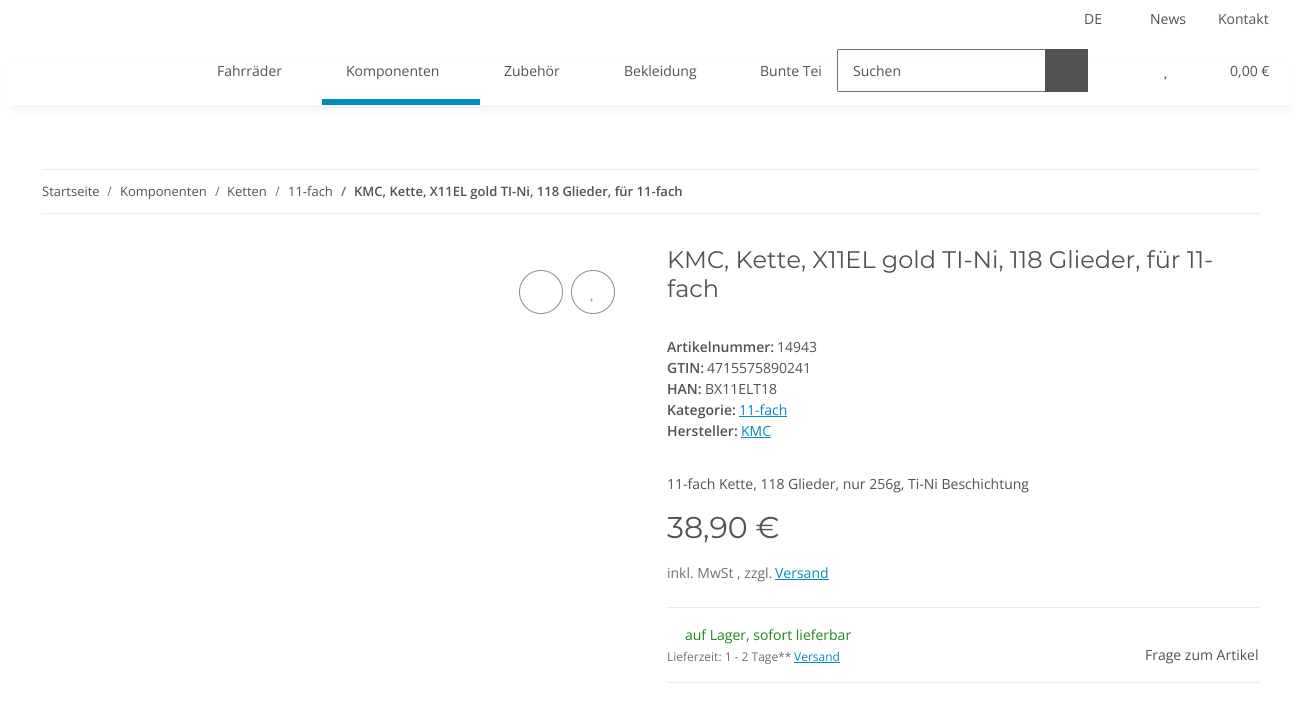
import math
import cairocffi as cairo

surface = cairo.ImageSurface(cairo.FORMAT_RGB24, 1301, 709)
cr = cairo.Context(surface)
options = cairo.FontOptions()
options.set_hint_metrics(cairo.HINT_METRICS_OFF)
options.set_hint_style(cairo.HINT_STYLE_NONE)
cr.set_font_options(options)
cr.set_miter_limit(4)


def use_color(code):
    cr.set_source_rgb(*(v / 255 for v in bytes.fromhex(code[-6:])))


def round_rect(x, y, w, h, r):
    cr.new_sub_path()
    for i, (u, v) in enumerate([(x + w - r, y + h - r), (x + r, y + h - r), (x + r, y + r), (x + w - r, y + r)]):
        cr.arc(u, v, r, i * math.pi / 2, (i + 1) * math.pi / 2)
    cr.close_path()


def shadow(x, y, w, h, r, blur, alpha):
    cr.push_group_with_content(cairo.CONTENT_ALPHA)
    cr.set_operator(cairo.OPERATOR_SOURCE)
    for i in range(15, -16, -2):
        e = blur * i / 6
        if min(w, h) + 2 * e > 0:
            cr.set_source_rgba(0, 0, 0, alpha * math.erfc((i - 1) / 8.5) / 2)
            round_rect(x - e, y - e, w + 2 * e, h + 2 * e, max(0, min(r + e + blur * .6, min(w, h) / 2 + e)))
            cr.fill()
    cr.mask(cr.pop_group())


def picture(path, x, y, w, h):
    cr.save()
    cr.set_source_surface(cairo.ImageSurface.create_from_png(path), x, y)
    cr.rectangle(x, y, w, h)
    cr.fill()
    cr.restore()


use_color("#ffffff")
cr.paint()
cr.select_font_face("Open Sans")
cr.set_font_size(14)
use_color("#525252")
cr.move_to(1084, 24)
cr.show_text("DE")
cr.move_to(1150, 24)
cr.show_text("News")
cr.move_to(1218, 24)
cr.show_text("Kontakt")
use_color("#000000")
shadow(12, 65, 1277, 44, 0, 4.5, 0.06)
use_color("#ffffff")
cr.rectangle(8, 61, 1285, 44)
cr.fill()
use_color("#525252")
cr.move_to(217, 76)
cr.show_text("Fahrräder")
cr.move_to(346, 76)
cr.show_text("Komponenten")
use_color("#008cba")
cr.rectangle(322, 99, 158, 6)
cr.fill()
use_color("#525252")
cr.move_to(504, 76)
cr.show_text("Zubehör")
cr.move_to(624, 76)
cr.show_text("Bekleidung")
cr.save()
cr.rectangle(760, 60, 61, 21)
cr.clip()
cr.move_to(760, 76)
cr.show_text("Bunte Tei")
cr.restore()
cr.new_path()
cr.move_to(839, 49.5)
cr.line_to(1045.5, 49.5)
cr.line_to(1045.5, 91.5)
cr.line_to(839, 91.5)
cr.curve_to(838, 91.5, 837.5, 91, 837.5, 90)
cr.line_to(837.5, 51)
cr.curve_to(837.5, 50, 838, 49.5, 839, 49.5)
cr.close_path()
use_color("#707070")
cr.set_line_width(1)
cr.stroke()
use_color("#525252")
cr.move_to(853, 76)
cr.show_text("Suchen")
cr.rectangle(1045, 49, 43, 43)
cr.fill()
picture("img1.png", 1164, 76, 3, 4)
cr.move_to(1230, 76)
cr.show_text("0,00 €")
use_color("#ebebeb")
cr.rectangle(42, 169, 1218, 1)
cr.fill()
cr.rectangle(42, 213, 1218, 1)
cr.fill()
cr.set_font_size(13)
use_color("#525252")
cr.move_to(42, 196)
cr.show_text("Startseite")
use_color("#707070")
cr.move_to(107, 196)
cr.show_text("/")
use_color("#525252")
cr.move_to(120, 196)
cr.show_text("Komponenten")
use_color("#707070")
cr.move_to(215, 196)
cr.show_text("/")
use_color("#525252")
cr.move_to(227, 196)
cr.show_text("Ketten")
use_color("#707070")
cr.move_to(275, 196)
cr.show_text("/")
use_color("#525252")
cr.move_to(288, 196)
cr.show_text("11-fach")
cr.select_font_face("Open Sans SemiBold")
use_color("#707070")
cr.move_to(341, 196)
cr.show_text("/")
use_color("#525252")
cr.move_to(354, 196)
cr.show_text("KMC, Kette, X11EL gold TI-Ni, 118 Glieder, für 11-fach")
cr.new_path()
cr.arc(541, 292, 21.5, 0, 2 * math.pi)
use_color("#8d8d8d")
cr.stroke()
cr.arc(593, 292, 21.5, 0, 2 * math.pi)
cr.stroke()
picture("img2.png", 590, 298, 3, 4)
cr.select_font_face("Montserrat")
cr.set_font_size(24)
use_color("#525252")
cr.move_to(667, 268)
cr.show_text("KMC, Kette, X11EL gold TI-Ni, 118 Glieder, für 11-")
cr.move_to(667, 297)
cr.show_text("fach")
cr.select_font_face("Open Sans SemiBold")
cr.set_font_size(14)
cr.move_to(667, 352)
cr.show_text("Artikelnummer:")
cr.select_font_face("Open Sans")
cr.move_to(777, 352)
cr.show_text("14943")
cr.select_font_face("Open Sans SemiBold")
cr.move_to(667, 373)
cr.show_text("GTIN:")
cr.select_font_face("Open Sans")
cr.move_to(707, 373)
cr.show_text("4715575890241")
cr.select_font_face("Open Sans SemiBold")
cr.move_to(667, 394)
cr.show_text("HAN:")
cr.select_font_face("Open Sans")
cr.move_to(705, 394)
cr.show_text("BX11ELT18")
cr.select_font_face("Open Sans SemiBold")
cr.move_to(667, 415)
cr.show_text("Kategorie:")
cr.select_font_face("Open Sans")
use_color("#008cba")
cr.move_to(739, 415)
cr.show_text("11-fach")
cr.rectangle(739, 416, 48, 1)
cr.fill()
cr.select_font_face("Open Sans SemiBold")
use_color("#525252")
cr.move_to(667, 436)
cr.show_text("Hersteller:")
cr.select_font_face("Open Sans")
use_color("#008cba")
cr.move_to(741, 436)
cr.show_text("KMC")
cr.rectangle(741, 437, 30, 1)
cr.fill()
use_color("#525252")
cr.move_to(667, 489)
cr.show_text("11-fach Kette, 118 Glieder, nur 256g, Ti-Ni Beschichtung")
cr.select_font_face("Montserrat")
cr.set_font_size(30)
cr.move_to(667, 538)
cr.show_text("38,90 €")
cr.select_font_face("Open Sans")
cr.set_font_size(14)
use_color("#707070")
cr.move_to(667, 578)
cr.show_text("inkl. MwSt , zzgl.")
use_color("#008cba")
cr.move_to(775, 578)
cr.show_text("Versand")
cr.rectangle(775, 579, 54, 1)
cr.fill()
use_color("#ebebeb")
cr.rectangle(667, 607, 593, 1)
cr.fill()
cr.rectangle(667, 682, 593, 1)
cr.fill()
use_color("#1c871e")
cr.move_to(685, 640)
cr.show_text("auf Lager, sofort lieferbar")
cr.set_font_size(12)
use_color("#707070")
cr.move_to(667, 661)
cr.show_text("Lieferzeit: 1 - 2 Tage**")
use_color("#008cba")
cr.move_to(794, 661)
cr.show_text("Versand")
cr.rectangle(794, 662, 46, 1)
cr.fill()
cr.set_font_size(14)
use_color("#525252")
cr.move_to(1145, 660)
cr.show_text("Frage zum Artikel")
surface.write_to_png("result.png")
